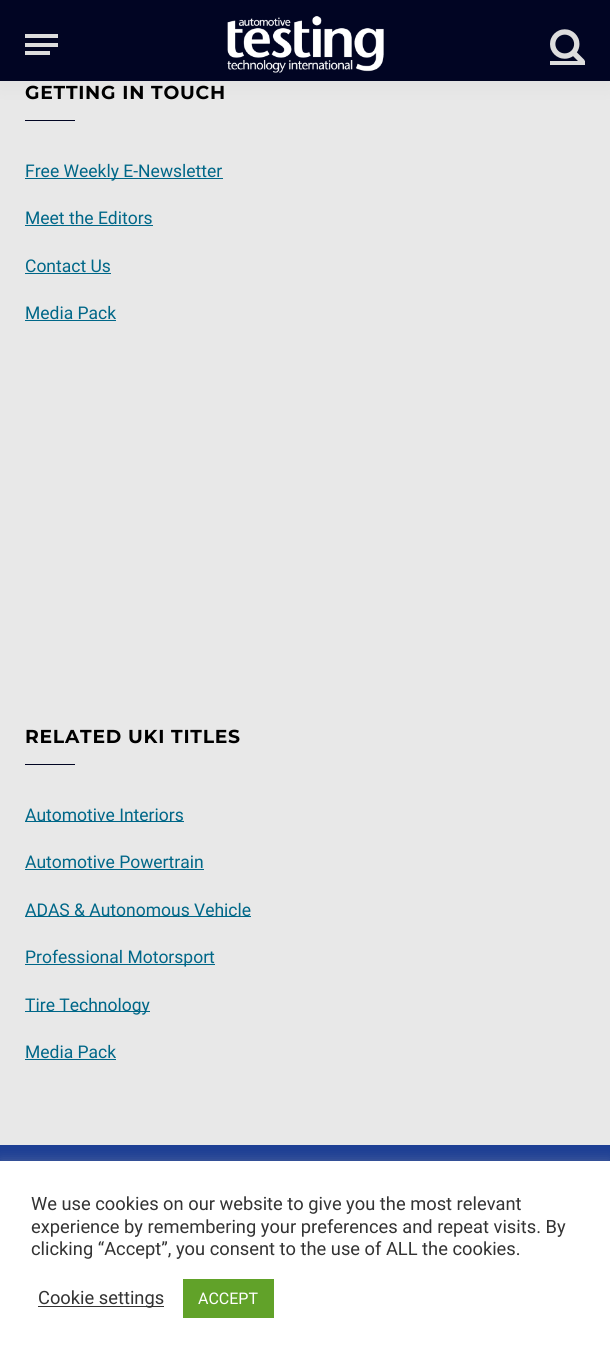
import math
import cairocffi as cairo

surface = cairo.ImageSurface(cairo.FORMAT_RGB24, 610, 1354)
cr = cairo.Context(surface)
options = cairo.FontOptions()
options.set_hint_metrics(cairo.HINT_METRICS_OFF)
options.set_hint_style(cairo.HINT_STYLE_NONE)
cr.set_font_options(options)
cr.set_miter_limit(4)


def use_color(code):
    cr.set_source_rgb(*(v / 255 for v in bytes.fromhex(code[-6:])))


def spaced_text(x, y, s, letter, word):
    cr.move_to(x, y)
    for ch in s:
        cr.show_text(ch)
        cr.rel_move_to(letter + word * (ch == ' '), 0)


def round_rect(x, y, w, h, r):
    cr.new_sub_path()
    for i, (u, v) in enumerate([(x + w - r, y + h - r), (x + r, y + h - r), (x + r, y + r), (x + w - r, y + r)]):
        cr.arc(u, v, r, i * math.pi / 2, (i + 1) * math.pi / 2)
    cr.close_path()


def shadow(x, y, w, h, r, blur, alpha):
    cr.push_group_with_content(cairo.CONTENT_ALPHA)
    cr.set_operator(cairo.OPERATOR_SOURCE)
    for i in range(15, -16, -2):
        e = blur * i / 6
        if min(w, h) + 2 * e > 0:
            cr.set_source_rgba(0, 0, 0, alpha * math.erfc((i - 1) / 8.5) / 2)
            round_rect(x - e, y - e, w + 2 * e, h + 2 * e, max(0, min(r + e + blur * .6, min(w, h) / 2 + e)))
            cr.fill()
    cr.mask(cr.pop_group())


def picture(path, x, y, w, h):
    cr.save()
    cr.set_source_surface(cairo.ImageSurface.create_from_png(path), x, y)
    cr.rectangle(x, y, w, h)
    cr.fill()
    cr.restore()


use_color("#e8e8e8")
cr.paint()
use_color("#000000")
shadow(0, 0, 610, 81, 0, 12.5, 0.05)
use_color("#010523")
cr.rectangle(0, 0, 610, 81)
cr.fill()
use_color("#dddddd")
cr.rectangle(25, 51, 25, 4)
cr.fill()
cr.rectangle(25, 34, 33, 4)
cr.fill()
cr.rectangle(25, 43, 33, 4)
cr.fill()
picture("img1.png", 227, 16, 157, 57)
picture("img2.png", 550, 29, 35, 32)
cr.rectangle(550, 61, 35, 4)
cr.fill()
cr.select_font_face("Montserrat", cairo.FONT_SLANT_NORMAL, cairo.FONT_WEIGHT_BOLD)
cr.set_font_size(18.75)
use_color("#000000")
spaced_text(25, 99, "GETTING IN TOUCH", 0.75, 0)
use_color("#010523")
cr.rectangle(25, 120, 50, 1)
cr.fill()
use_color("#006788")
cr.rectangle(25, 178, 198, 1)
cr.fill()
cr.select_font_face("Roboto")
cr.set_font_size(17.5)
cr.move_to(25, 177)
cr.show_text("Free Weekly E-Newsletter")
cr.move_to(25, 224)
cr.show_text("Meet the Editors")
cr.rectangle(25, 225, 128, 1)
cr.fill()
cr.move_to(25, 272)
cr.show_text("Contact Us")
cr.rectangle(25, 273, 86, 1)
cr.fill()
cr.move_to(25, 319)
cr.show_text("Media Pack")
cr.rectangle(25, 320, 91, 1)
cr.fill()
cr.select_font_face("Montserrat", cairo.FONT_SLANT_NORMAL, cairo.FONT_WEIGHT_BOLD)
cr.set_font_size(18.75)
use_color("#000000")
spaced_text(25, 743, "RELATED UKI TITLES", 0.75, 0)
use_color("#010523")
cr.rectangle(25, 764, 50, 1)
cr.fill()
use_color("#006788")
cr.rectangle(25, 821, 159, 1)
cr.fill()
cr.select_font_face("Roboto")
cr.set_font_size(17.5)
cr.move_to(25, 821)
cr.show_text("Automotive Interiors")
cr.move_to(25, 868)
cr.show_text("Automotive Powertrain")
cr.rectangle(25, 869, 179, 1)
cr.fill()
cr.rectangle(25, 916, 226, 1)
cr.fill()
cr.move_to(25, 916)
cr.show_text("ADAS & Autonomous Vehicle")
cr.rectangle(25, 964, 190, 1)
cr.fill()
cr.move_to(25, 963)
cr.show_text("Professional Motorsport")
cr.rectangle(25, 1011, 125, 1)
cr.fill()
cr.move_to(25, 1011)
cr.show_text("Tire Technology")
cr.move_to(25, 1058)
cr.show_text("Media Pack")
cr.rectangle(25, 1059, 91, 1)
cr.fill()
use_color("#1d3f94")
cr.rectangle(0, 1145, 610, 16)
cr.fill()
use_color("#acabab")
shadow(0, 1160, 610, 194, 0, 6, 0.3)
use_color("#ffffff")
cr.rectangle(0, 1161, 610, 193)
cr.fill()
cr.set_font_size(18.3)
use_color("#333333")
cr.move_to(31, 1210)
cr.show_text("We use cookies on our website to give you the most relevant")
cr.move_to(31, 1233)
cr.show_text("experience by remembering your preferences and repeat visits. By")
cr.move_to(31, 1255)
cr.show_text("clicking “Accept”, you consent to the use of ALL the cookies.")
cr.rectangle(38, 1306, 126, 1)
cr.fill()
cr.move_to(38, 1304)
cr.show_text("Cookie settings")
use_color("#61a229")
cr.rectangle(183, 1279, 91, 39)
cr.fill()
cr.set_font_size(16)
use_color("#ffffff")
cr.move_to(198, 1304)
cr.show_text("ACCEPT")
surface.write_to_png("result.png")
